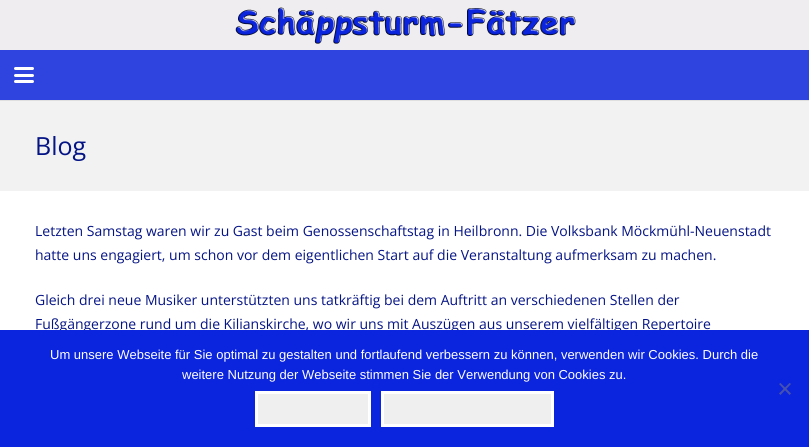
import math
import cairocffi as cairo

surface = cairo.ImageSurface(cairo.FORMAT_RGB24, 809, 447)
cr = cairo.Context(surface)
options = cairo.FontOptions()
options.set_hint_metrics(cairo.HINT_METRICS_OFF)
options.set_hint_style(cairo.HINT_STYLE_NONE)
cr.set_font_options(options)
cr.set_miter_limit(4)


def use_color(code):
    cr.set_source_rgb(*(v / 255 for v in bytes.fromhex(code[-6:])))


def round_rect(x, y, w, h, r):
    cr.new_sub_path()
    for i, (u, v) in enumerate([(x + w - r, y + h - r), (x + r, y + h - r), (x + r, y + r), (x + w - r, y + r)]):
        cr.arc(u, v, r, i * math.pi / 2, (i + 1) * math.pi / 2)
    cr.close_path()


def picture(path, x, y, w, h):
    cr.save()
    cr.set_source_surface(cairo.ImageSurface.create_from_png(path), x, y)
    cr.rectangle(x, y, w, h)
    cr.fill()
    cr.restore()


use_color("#ffffff")
cr.paint()
use_color("#f0edf0")
cr.rectangle(0, 0, 809, 50)
cr.fill()
picture("img1.png", 235, 7, 341, 37)
use_color("#dfdfdf")
cr.rectangle(0, 100, 809, 1)
cr.fill()
use_color("#2f43de")
cr.rectangle(0, 50, 809, 50)
cr.fill()
use_color("#ffffff")
round_rect(14, 74, 20, 3, 1.5)
cr.fill()
round_rect(14, 67, 20, 3, 1.5)
cr.fill()
round_rect(14, 80, 20, 3, 1.5)
cr.fill()
use_color("#f2f2f2")
cr.rectangle(0, 101, 809, 90)
cr.fill()
cr.select_font_face("Open Sans")
cr.set_font_size(25)
use_color("#051485")
cr.move_to(35, 155)
cr.show_text("Blog")
cr.set_font_size(14)
cr.move_to(35, 236)
cr.show_text("Letzten Samstag waren wir zu Gast beim Genossenschaftstag in Heilbronn. Die Volksbank Möckmühl-Neuenstadt")
cr.move_to(35, 260)
cr.show_text("hatte uns engagiert, um schon vor dem eigentlichen Start auf die Veranstaltung aufmerksam zu machen.")
cr.move_to(35, 305)
cr.show_text("Gleich drei neue Musiker unterstützten uns tatkräftig bei dem Auftritt an verschiedenen Stellen der")
cr.move_to(35, 329)
cr.show_text("Fußgängerzone rund um die Kilianskirche, wo wir uns mit Auszügen aus unserem vielfältigen Repertoire")
use_color("#0b24dd")
cr.rectangle(0, 330, 809, 117)
cr.fill()
cr.select_font_face("Liberation Sans")
cr.set_font_size(13)
use_color("#ffffff")
cr.move_to(50, 359)
cr.show_text("Um unsere Webseite für Sie optimal zu gestalten und fortlaufend verbessern zu können, verwenden wir Cookies. Durch die")
cr.move_to(182, 379)
cr.show_text("weitere Nutzung der Webseite stimmen Sie der Verwendung von Cookies zu.")
use_color("#4652af")
cr.new_path()
cr.move_to(789.5, 383)
cr.line_to(791, 384)
cr.line_to(780.5, 395)
cr.line_to(779, 393.5)
cr.close_path()
cr.fill()
cr.new_path()
cr.move_to(779, 384)
cr.line_to(780.5, 383)
cr.line_to(791, 393.5)
cr.line_to(789.5, 395)
cr.close_path()
cr.fill()
use_color("#efefef")
cr.rectangle(256.5, 392.5, 113, 33)
cr.fill_preserve()
use_color("#ffffff")
cr.set_line_width(3)
cr.stroke()
use_color("#efefef")
cr.rectangle(382.5, 392.5, 170, 33)
cr.fill_preserve()
use_color("#ffffff")
cr.stroke()
surface.write_to_png("result.png")
